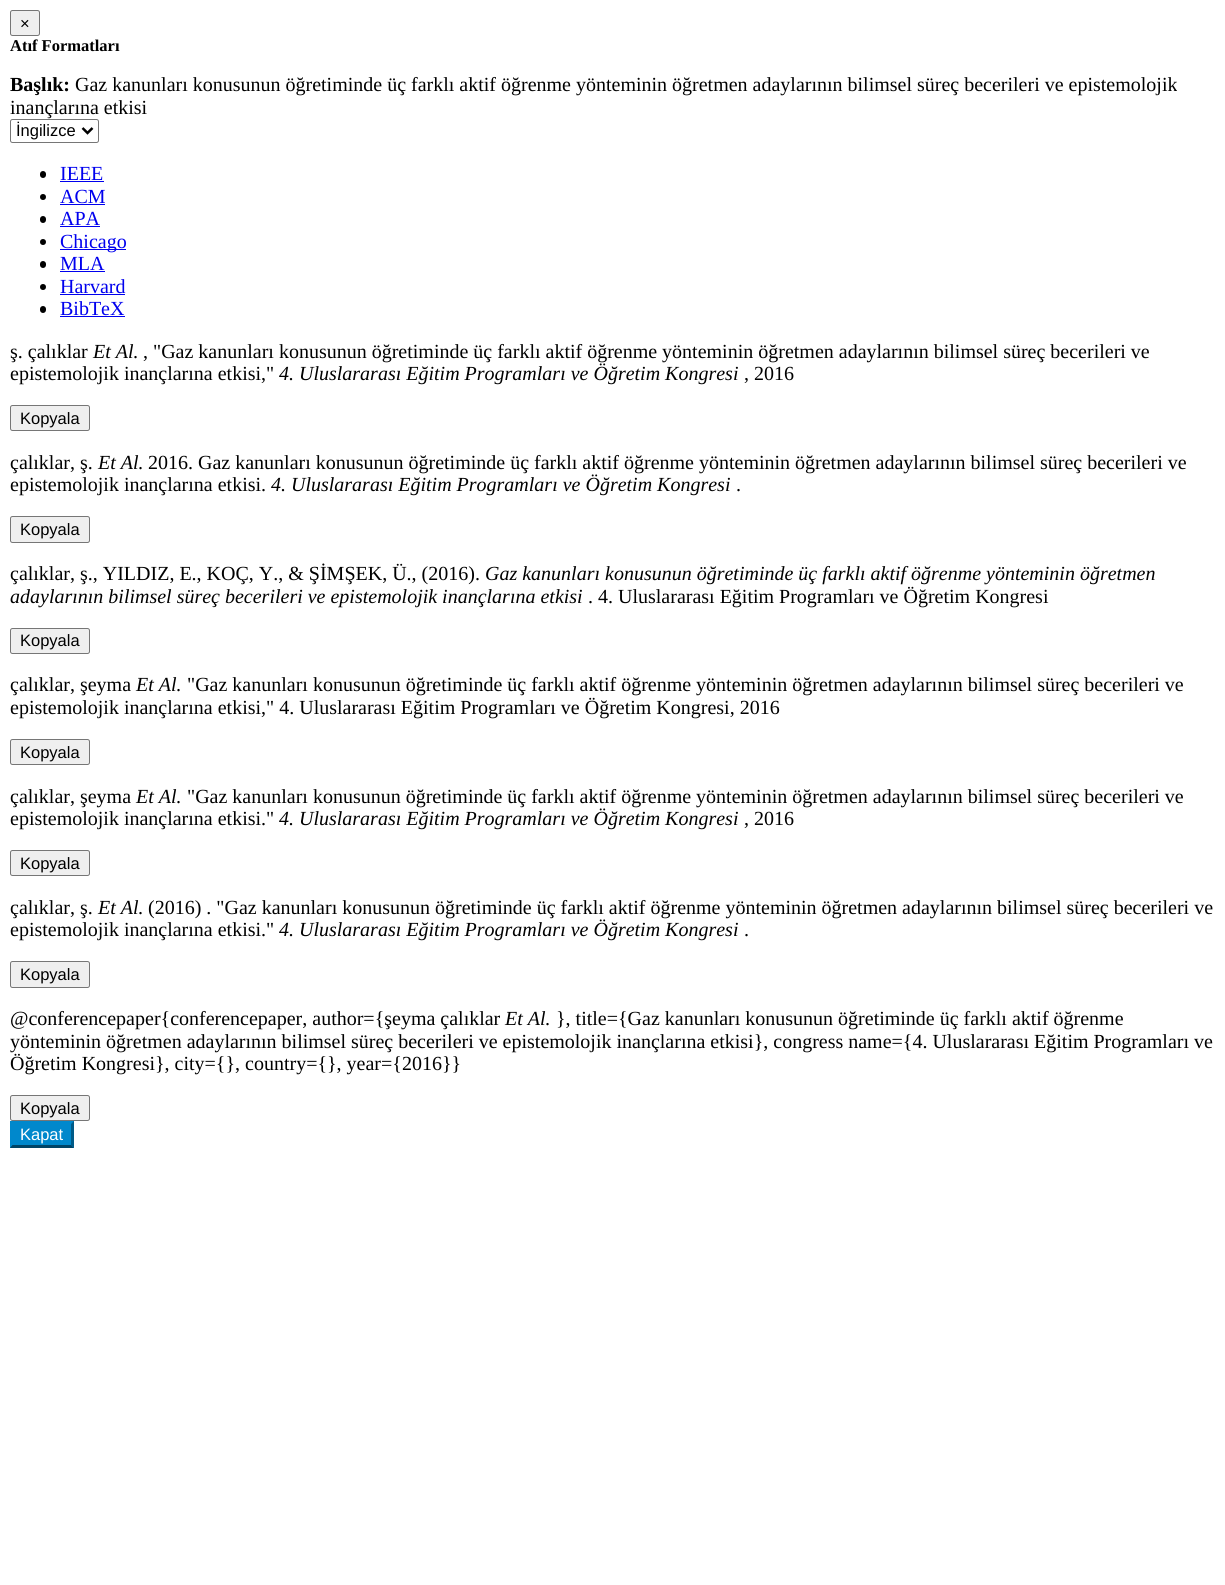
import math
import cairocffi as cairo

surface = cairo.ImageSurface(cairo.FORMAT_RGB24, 1225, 1585)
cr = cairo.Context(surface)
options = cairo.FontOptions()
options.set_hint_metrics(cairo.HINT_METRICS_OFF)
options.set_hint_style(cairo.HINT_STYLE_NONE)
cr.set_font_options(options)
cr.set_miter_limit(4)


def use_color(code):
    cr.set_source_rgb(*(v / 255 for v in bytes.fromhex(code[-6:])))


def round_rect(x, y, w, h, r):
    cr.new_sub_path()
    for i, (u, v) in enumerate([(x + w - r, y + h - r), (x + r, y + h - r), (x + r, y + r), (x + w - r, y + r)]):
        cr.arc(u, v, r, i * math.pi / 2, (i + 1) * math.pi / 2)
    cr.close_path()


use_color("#ffffff")
cr.paint()
use_color("#efefef")
round_rect(10.5, 10.5, 29, 25, 2)
cr.fill_preserve()
use_color("#767676")
cr.set_line_width(1)
cr.stroke()
cr.select_font_face("Liberation Sans")
cr.set_font_size(16.5)
use_color("#000000")
cr.move_to(20, 29)
cr.show_text("×")
cr.select_font_face("Liberation Serif", cairo.FONT_SLANT_NORMAL, cairo.FONT_WEIGHT_BOLD)
cr.move_to(10, 51)
cr.show_text("Atıf Formatları")
cr.set_font_size(20)
cr.move_to(10, 91)
cr.show_text("Başlık:")
cr.select_font_face("Liberation Serif")
cr.move_to(75, 91)
cr.show_text("Gaz kanunları konusunun öğretiminde üç farklı aktif öğrenme yönteminin öğretmen adaylarının bilimsel süreç becerileri ve epistemolojik")
cr.move_to(10, 114)
cr.show_text("inançlarına etkisi")
round_rect(10.5, 119.5, 88, 23, 2)
use_color("#767676")
cr.stroke()
cr.new_path()
cr.move_to(82.5, 128)
cr.line_to(87.5, 133)
cr.line_to(92.5, 128)
use_color("#000000")
cr.set_line_width(2.5)
cr.stroke()
cr.select_font_face("Liberation Sans")
cr.set_font_size(16.5)
cr.move_to(16, 136)
cr.show_text("İngilizce")
round_rect(40, 171, 6, 7, 3)
cr.fill()
cr.select_font_face("Liberation Serif")
cr.set_font_size(20)
use_color("#0000ee")
cr.move_to(60, 180)
cr.show_text("IEEE")
cr.rectangle(60, 181, 44, 1)
cr.fill()
use_color("#000000")
cr.arc(43, 197, 3, 0, 2 * math.pi)
cr.fill()
use_color("#0000ee")
cr.move_to(60, 203)
cr.show_text("ACM")
cr.rectangle(60, 204, 45, 1)
cr.fill()
use_color("#000000")
round_rect(40, 216, 6, 7, 3)
cr.fill()
use_color("#0000ee")
cr.move_to(60, 225)
cr.show_text("APA")
cr.rectangle(60, 226, 40, 1)
cr.fill()
use_color("#000000")
cr.arc(43, 242, 3, 0, 2 * math.pi)
cr.fill()
use_color("#0000ee")
cr.rectangle(60, 249, 66, 1)
cr.fill()
cr.move_to(60, 248)
cr.show_text("Chicago")
use_color("#000000")
round_rect(40, 261, 6, 7, 3)
cr.fill()
use_color("#0000ee")
cr.move_to(60, 270)
cr.show_text("MLA")
cr.rectangle(60, 271, 45, 1)
cr.fill()
use_color("#000000")
cr.arc(43, 287, 3, 0, 2 * math.pi)
cr.fill()
use_color("#0000ee")
cr.move_to(60, 293)
cr.show_text("Harvard")
cr.rectangle(60, 294, 65, 1)
cr.fill()
use_color("#000000")
round_rect(40, 306, 6, 7, 3)
cr.fill()
use_color("#0000ee")
cr.move_to(60, 315)
cr.show_text("BibTeX")
cr.rectangle(60, 316, 65, 1)
cr.fill()
use_color("#000000")
cr.move_to(10, 358)
cr.show_text("ş. çalıklar")
cr.select_font_face("Liberation Serif", cairo.FONT_SLANT_ITALIC)
cr.move_to(93, 358)
cr.show_text("Et Al.")
cr.select_font_face("Liberation Serif")
cr.move_to(143, 358)
cr.show_text(", \"Gaz kanunları konusunun öğretiminde üç farklı aktif öğrenme yönteminin öğretmen adaylarının bilimsel süreç becerileri ve")
cr.move_to(10, 380)
cr.show_text("epistemolojik inançlarına etkisi,\"")
cr.select_font_face("Liberation Serif", cairo.FONT_SLANT_ITALIC)
cr.move_to(279, 380)
cr.show_text("4. Uluslararası Eğitim Programları ve Öğretim Kongresi")
cr.select_font_face("Liberation Serif")
cr.move_to(744, 380)
cr.show_text(", 2016")
use_color("#efefef")
round_rect(10.5, 405.5, 79, 25, 2)
cr.fill_preserve()
use_color("#767676")
cr.set_line_width(1)
cr.stroke()
cr.select_font_face("Liberation Sans")
cr.set_font_size(16.5)
use_color("#000000")
cr.move_to(20, 424)
cr.show_text("Kopyala")
cr.select_font_face("Liberation Serif")
cr.set_font_size(20)
cr.move_to(10, 469)
cr.show_text("çalıklar, ş.")
cr.select_font_face("Liberation Serif", cairo.FONT_SLANT_ITALIC)
cr.move_to(98, 469)
cr.show_text("Et Al.")
cr.select_font_face("Liberation Serif")
cr.move_to(148, 469)
cr.show_text("2016. Gaz kanunları konusunun öğretiminde üç farklı aktif öğrenme yönteminin öğretmen adaylarının bilimsel süreç becerileri ve")
cr.move_to(10, 491)
cr.show_text("epistemolojik inançlarına etkisi.")
cr.select_font_face("Liberation Serif", cairo.FONT_SLANT_ITALIC)
cr.move_to(271, 491)
cr.show_text("4. Uluslararası Eğitim Programları ve Öğretim Kongresi")
cr.select_font_face("Liberation Serif")
cr.move_to(736, 491)
cr.show_text(".")
use_color("#efefef")
round_rect(10.5, 516.5, 79, 26, 2)
cr.fill_preserve()
use_color("#767676")
cr.stroke()
cr.select_font_face("Liberation Sans")
cr.set_font_size(16.5)
use_color("#000000")
cr.move_to(20, 535)
cr.show_text("Kopyala")
cr.select_font_face("Liberation Serif")
cr.set_font_size(20)
cr.move_to(10, 580)
cr.show_text("çalıklar, ş., YILDIZ, E., KOÇ, Y., & ŞİMŞEK, Ü., (2016).")
cr.select_font_face("Liberation Serif", cairo.FONT_SLANT_ITALIC)
cr.move_to(485, 580)
cr.show_text("Gaz kanunları konusunun öğretiminde üç farklı aktif öğrenme yönteminin öğretmen")
cr.move_to(10, 603)
cr.show_text("adaylarının bilimsel süreç becerileri ve epistemolojik inançlarına etkisi")
cr.select_font_face("Liberation Serif")
cr.move_to(588, 603)
cr.show_text(". 4. Uluslararası Eğitim Programları ve Öğretim Kongresi")
use_color("#efefef")
round_rect(10.5, 628.5, 79, 25, 2)
cr.fill_preserve()
use_color("#767676")
cr.stroke()
cr.select_font_face("Liberation Sans")
cr.set_font_size(16.5)
use_color("#000000")
cr.move_to(20, 646)
cr.show_text("Kopyala")
cr.select_font_face("Liberation Serif")
cr.set_font_size(20)
cr.move_to(10, 691)
cr.show_text("çalıklar, şeyma")
cr.select_font_face("Liberation Serif", cairo.FONT_SLANT_ITALIC)
cr.move_to(136, 691)
cr.show_text("Et Al.")
cr.select_font_face("Liberation Serif")
cr.move_to(187, 691)
cr.show_text("\"Gaz kanunları konusunun öğretiminde üç farklı aktif öğrenme yönteminin öğretmen adaylarının bilimsel süreç becerileri ve")
cr.move_to(10, 714)
cr.show_text("epistemolojik inançlarına etkisi,\" 4. Uluslararası Eğitim Programları ve Öğretim Kongresi, 2016")
use_color("#efefef")
round_rect(10.5, 739.5, 79, 25, 2)
cr.fill_preserve()
use_color("#767676")
cr.stroke()
cr.select_font_face("Liberation Sans")
cr.set_font_size(16.5)
use_color("#000000")
cr.move_to(20, 758)
cr.show_text("Kopyala")
cr.select_font_face("Liberation Serif")
cr.set_font_size(20)
cr.move_to(10, 803)
cr.show_text("çalıklar, şeyma")
cr.select_font_face("Liberation Serif", cairo.FONT_SLANT_ITALIC)
cr.move_to(136, 803)
cr.show_text("Et Al.")
cr.select_font_face("Liberation Serif")
cr.move_to(187, 803)
cr.show_text("\"Gaz kanunları konusunun öğretiminde üç farklı aktif öğrenme yönteminin öğretmen adaylarının bilimsel süreç becerileri ve")
cr.move_to(10, 825)
cr.show_text("epistemolojik inançlarına etkisi.\"")
cr.select_font_face("Liberation Serif", cairo.FONT_SLANT_ITALIC)
cr.move_to(279, 825)
cr.show_text("4. Uluslararası Eğitim Programları ve Öğretim Kongresi")
cr.select_font_face("Liberation Serif")
cr.move_to(744, 825)
cr.show_text(", 2016")
use_color("#efefef")
round_rect(10.5, 850.5, 79, 25, 2)
cr.fill_preserve()
use_color("#767676")
cr.stroke()
cr.select_font_face("Liberation Sans")
cr.set_font_size(16.5)
use_color("#000000")
cr.move_to(20, 869)
cr.show_text("Kopyala")
cr.select_font_face("Liberation Serif")
cr.set_font_size(20)
cr.move_to(10, 914)
cr.show_text("çalıklar, ş.")
cr.select_font_face("Liberation Serif", cairo.FONT_SLANT_ITALIC)
cr.move_to(98, 914)
cr.show_text("Et Al.")
cr.select_font_face("Liberation Serif")
cr.move_to(148, 914)
cr.show_text("(2016) . \"Gaz kanunları konusunun öğretiminde üç farklı aktif öğrenme yönteminin öğretmen adaylarının bilimsel süreç becerileri ve")
cr.move_to(10, 936)
cr.show_text("epistemolojik inançlarına etkisi.\"")
cr.select_font_face("Liberation Serif", cairo.FONT_SLANT_ITALIC)
cr.move_to(279, 936)
cr.show_text("4. Uluslararası Eğitim Programları ve Öğretim Kongresi")
cr.select_font_face("Liberation Serif")
cr.move_to(744, 936)
cr.show_text(".")
use_color("#efefef")
round_rect(10.5, 961.5, 79, 26, 2)
cr.fill_preserve()
use_color("#767676")
cr.stroke()
cr.select_font_face("Liberation Sans")
cr.set_font_size(16.5)
use_color("#000000")
cr.move_to(20, 980)
cr.show_text("Kopyala")
cr.select_font_face("Liberation Serif")
cr.set_font_size(20)
cr.move_to(10, 1025)
cr.show_text("@conferencepaper{conferencepaper, author={şeyma çalıklar")
cr.select_font_face("Liberation Serif", cairo.FONT_SLANT_ITALIC)
cr.move_to(505, 1025)
cr.show_text("Et Al.")
cr.select_font_face("Liberation Serif")
cr.move_to(556, 1025)
cr.show_text("}, title={Gaz kanunları konusunun öğretiminde üç farklı aktif öğrenme")
cr.move_to(10, 1048)
cr.show_text("yönteminin öğretmen adaylarının bilimsel süreç becerileri ve epistemolojik inançlarına etkisi}, congress name={4. Uluslararası Eğitim Programları ve")
cr.move_to(10, 1070)
cr.show_text("Öğretim Kongresi}, city={}, country={}, year={2016}}")
use_color("#efefef")
round_rect(10.5, 1095.5, 79, 25, 2)
cr.fill_preserve()
use_color("#767676")
cr.stroke()
cr.select_font_face("Liberation Sans")
cr.set_font_size(16.5)
use_color("#000000")
cr.move_to(20, 1114)
cr.show_text("Kopyala")
use_color("#0088cc")
cr.rectangle(10, 1121, 64, 27)
cr.fill()
use_color("#005b88")
cr.new_path()
cr.move_to(74, 1121)
cr.line_to(74, 1147.5)
cr.line_to(71, 1145)
cr.line_to(71, 1124)
cr.close_path()
cr.fill()
use_color("#004466")
cr.new_path()
cr.move_to(74, 1148)
cr.line_to(10, 1148)
cr.line_to(12, 1145)
cr.line_to(71, 1145)
cr.close_path()
cr.fill()
use_color("#0088cc")
cr.new_path()
cr.move_to(10, 1147.5)
cr.line_to(10, 1121)
cr.line_to(12.5, 1124)
cr.line_to(12.5, 1145)
cr.close_path()
cr.fill()
use_color("#ffffff")
cr.move_to(20, 1140)
cr.show_text("Kapat")
surface.write_to_png("result.png")
